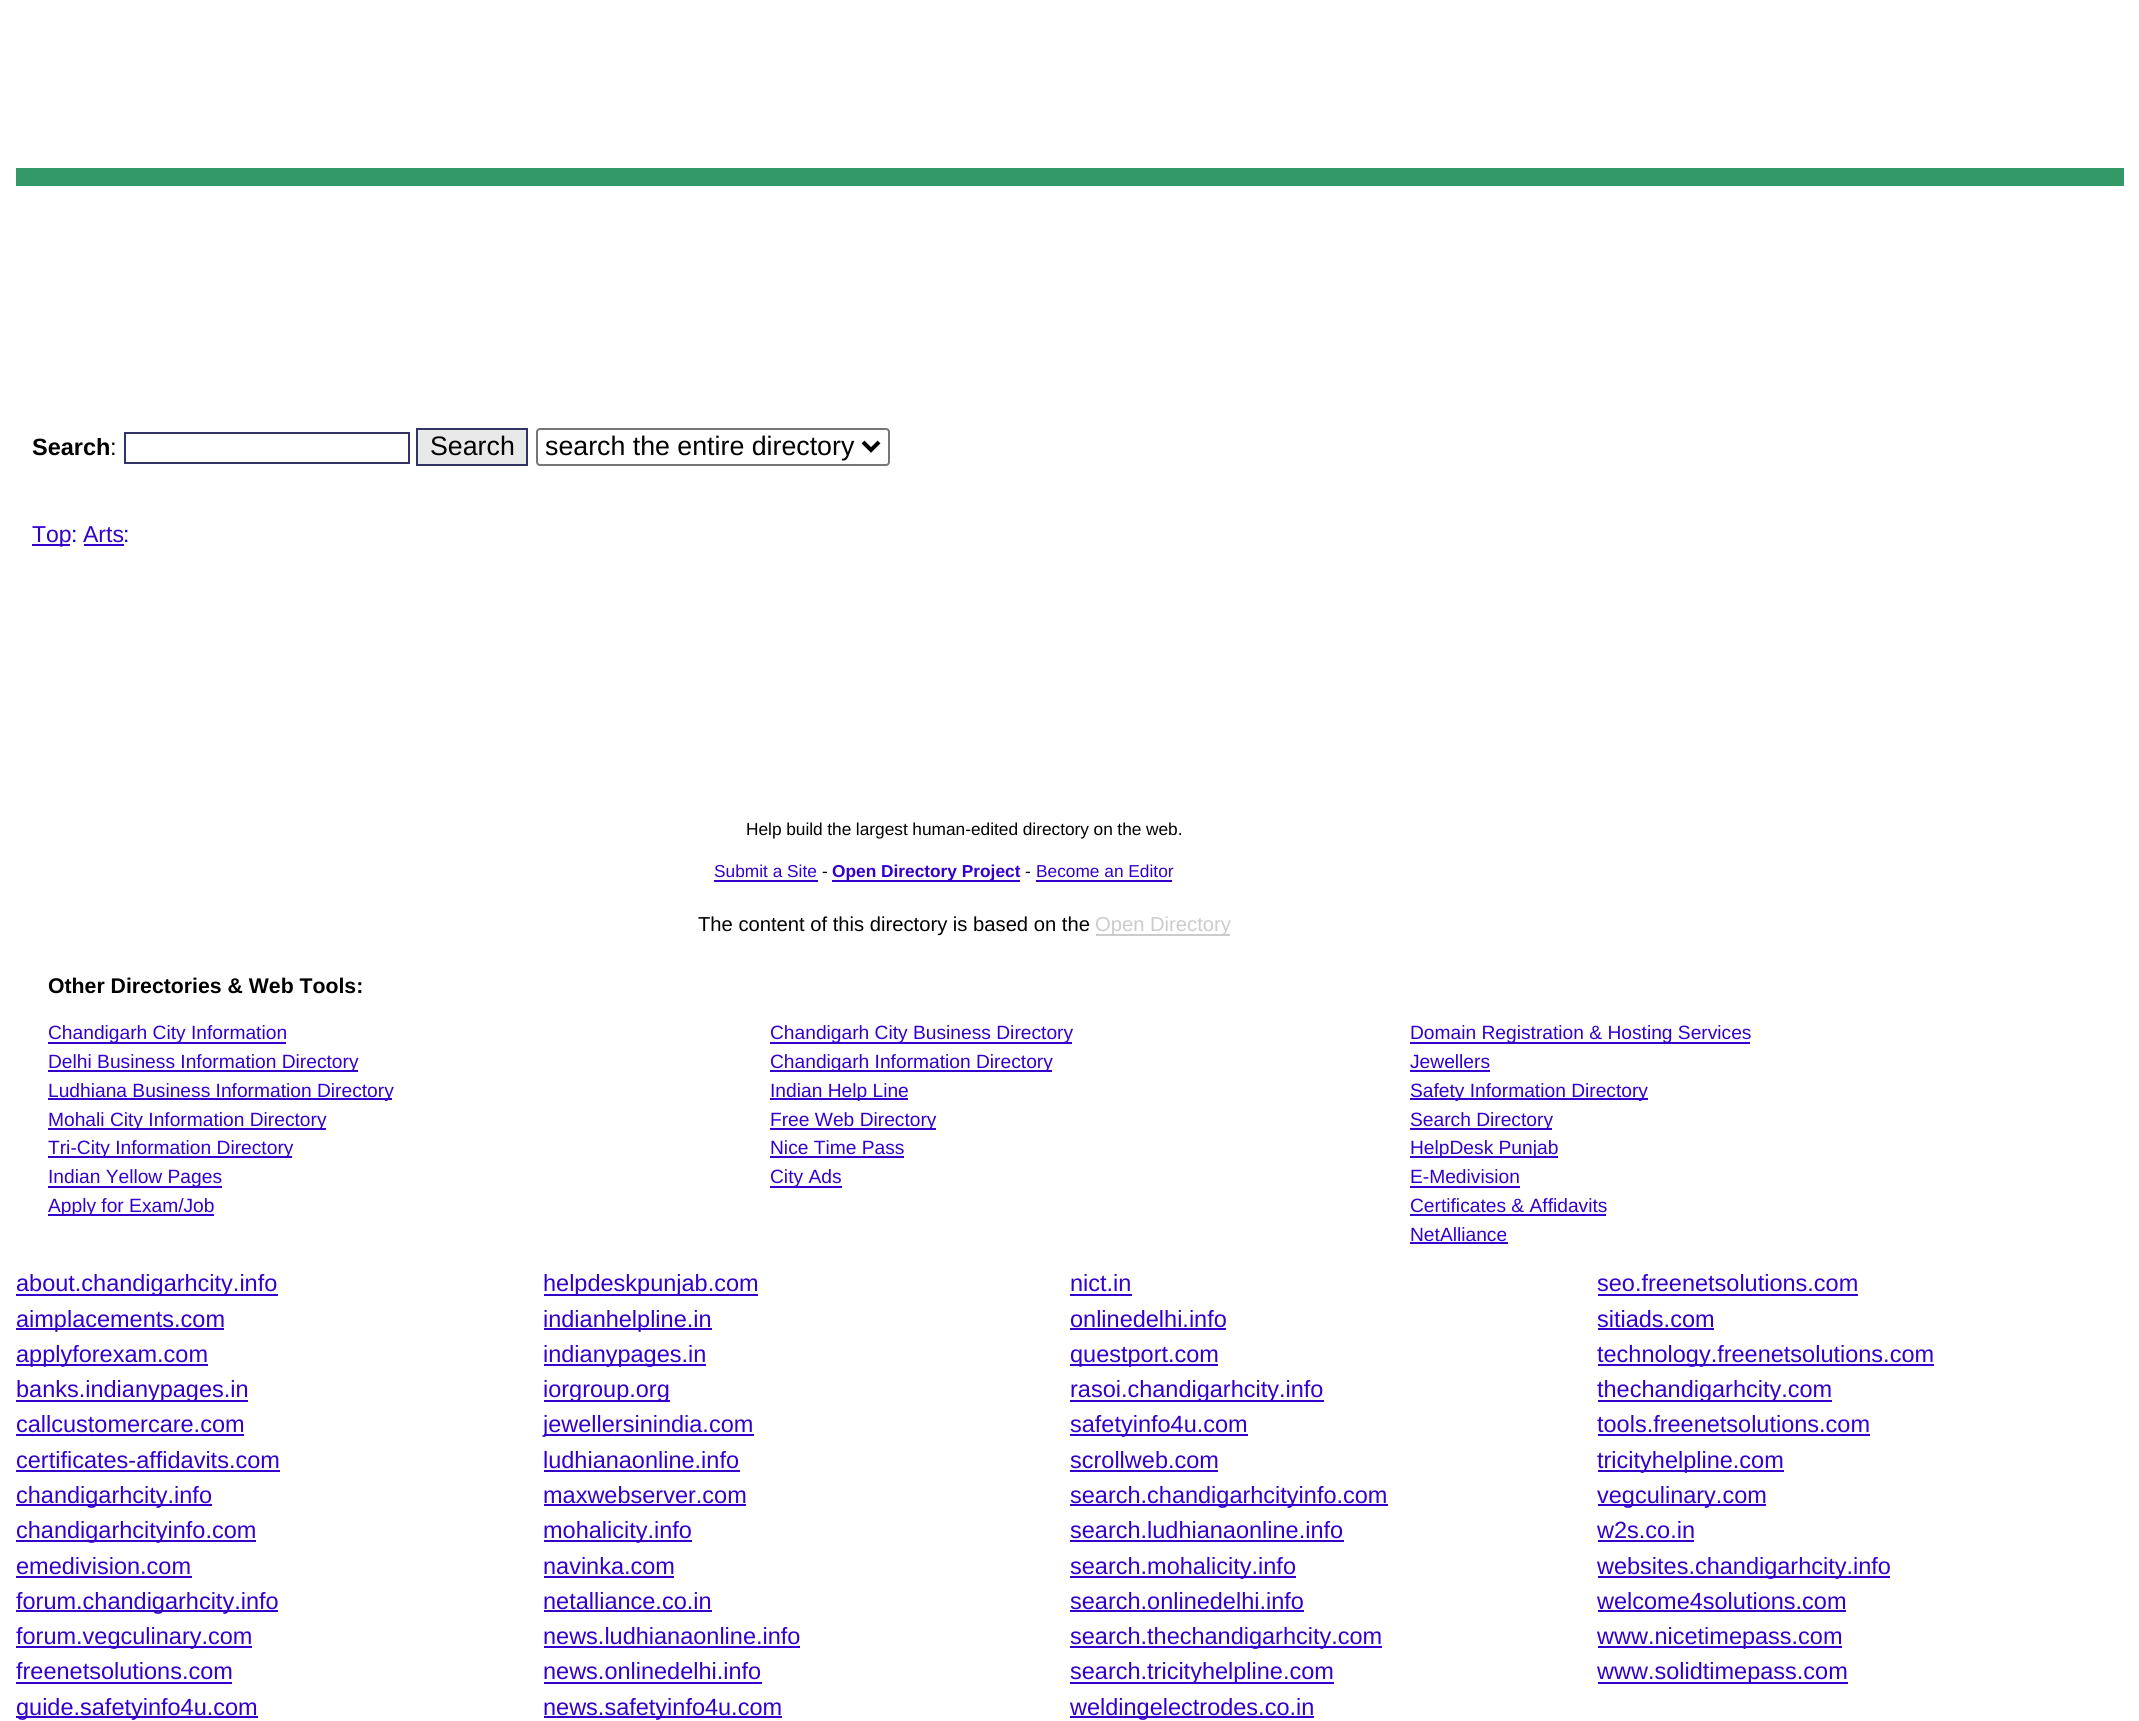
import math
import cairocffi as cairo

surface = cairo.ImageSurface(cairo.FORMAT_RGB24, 2139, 1721)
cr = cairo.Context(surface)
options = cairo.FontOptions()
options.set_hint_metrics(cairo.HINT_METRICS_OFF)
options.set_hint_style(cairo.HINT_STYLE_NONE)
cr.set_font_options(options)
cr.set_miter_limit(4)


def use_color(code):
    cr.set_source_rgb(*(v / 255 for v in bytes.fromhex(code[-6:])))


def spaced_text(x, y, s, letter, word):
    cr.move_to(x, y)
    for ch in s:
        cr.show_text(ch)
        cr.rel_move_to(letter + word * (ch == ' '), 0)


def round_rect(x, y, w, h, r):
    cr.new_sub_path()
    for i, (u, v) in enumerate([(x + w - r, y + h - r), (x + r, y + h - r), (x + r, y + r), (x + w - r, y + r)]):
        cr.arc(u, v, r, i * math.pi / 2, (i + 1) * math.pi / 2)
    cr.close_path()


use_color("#ffffff")
cr.paint()
use_color("#339966")
cr.rectangle(16, 168, 2108, 18)
cr.fill()
cr.select_font_face("Liberation Sans", cairo.FONT_SLANT_NORMAL, cairo.FONT_WEIGHT_BOLD)
cr.set_font_size(23.5)
use_color("#000000")
cr.move_to(32, 455)
cr.show_text("Search")
cr.select_font_face("Liberation Sans")
cr.move_to(110, 455)
cr.show_text(":")
cr.rectangle(125, 433, 284, 30)
use_color("#333366")
cr.stroke()
use_color("#e9e9e9")
cr.rectangle(417, 429, 110, 36)
cr.fill_preserve()
use_color("#333366")
cr.stroke()
cr.set_font_size(26.75)
use_color("#000000")
cr.move_to(430, 455)
cr.show_text("Search")
round_rect(537, 429, 352, 36, 3)
use_color("#767676")
cr.stroke()
cr.new_path()
cr.move_to(863, 442)
cr.line_to(871, 450)
cr.line_to(879, 442)
use_color("#000000")
cr.set_line_width(4)
cr.stroke()
cr.move_to(545, 455)
cr.show_text("search the entire directory")
use_color("#3300cc")
cr.rectangle(32, 544, 38, 2)
cr.fill()
cr.set_font_size(23)
cr.move_to(32, 542)
cr.show_text("Top")
use_color("#0000ff")
cr.move_to(71, 542)
cr.show_text(":")
use_color("#3300cc")
cr.move_to(83, 542)
cr.show_text("Arts")
cr.rectangle(84, 544, 40, 2)
cr.fill()
use_color("#0000ff")
cr.move_to(123, 542)
cr.show_text(":")
cr.set_font_size(17.3)
use_color("#000000")
spaced_text(746, 835, "Help build the largest human-edited directory on the web.", 0, -0.25)
use_color("#3300cc")
cr.move_to(714, 877)
cr.show_text("Submit a Site")
cr.rectangle(714, 880, 104, 2)
cr.fill()
use_color("#000000")
cr.move_to(822, 877)
cr.show_text("-")
use_color("#3300cc")
cr.rectangle(832, 880, 188, 2)
cr.fill()
cr.select_font_face("Liberation Sans", cairo.FONT_SLANT_NORMAL, cairo.FONT_WEIGHT_BOLD)
cr.move_to(832, 877)
cr.show_text("Open Directory Project")
cr.select_font_face("Liberation Sans")
use_color("#000000")
cr.move_to(1025, 877)
cr.show_text("-")
use_color("#3300cc")
cr.move_to(1036, 877)
cr.show_text("Become an Editor")
cr.rectangle(1036, 880, 136, 2)
cr.fill()
cr.set_font_size(20.2)
use_color("#000000")
cr.move_to(698, 931)
cr.show_text("The content of this directory is based on the")
use_color("#cccccc")
cr.rectangle(1096, 934, 134, 2)
cr.fill()
cr.move_to(1095, 931)
cr.show_text("Open Directory")
cr.select_font_face("Liberation Sans", cairo.FONT_SLANT_NORMAL, cairo.FONT_WEIGHT_BOLD)
cr.set_font_size(21.25)
use_color("#000000")
cr.move_to(48, 993)
cr.show_text("Other Directories & Web Tools:")
use_color("#3300cc")
cr.rectangle(48, 1042, 238, 2)
cr.fill()
cr.select_font_face("Liberation Sans")
cr.set_font_size(19.2)
cr.move_to(48, 1039)
cr.show_text("Chandigarh City Information")
cr.rectangle(48, 1070, 310, 2)
cr.fill()
cr.move_to(48, 1068)
cr.show_text("Delhi Business Information Directory")
cr.rectangle(48, 1098, 344, 2)
cr.fill()
cr.move_to(48, 1097)
cr.show_text("Ludhiana Business Information Directory")
cr.rectangle(48, 1128, 278, 2)
cr.fill()
cr.move_to(48, 1126)
cr.show_text("Mohali City Information Directory")
cr.rectangle(48, 1156, 244, 2)
cr.fill()
cr.move_to(48, 1154)
cr.show_text("Tri-City Information Directory")
cr.rectangle(48, 1186, 174, 2)
cr.fill()
cr.move_to(48, 1183)
cr.show_text("Indian Yellow Pages")
cr.rectangle(48, 1214, 166, 2)
cr.fill()
cr.move_to(48, 1212)
cr.show_text("Apply for Exam/Job")
cr.rectangle(770, 1042, 302, 2)
cr.fill()
cr.move_to(770, 1039)
cr.show_text("Chandigarh City Business Directory")
cr.rectangle(770, 1070, 282, 2)
cr.fill()
cr.move_to(770, 1068)
cr.show_text("Chandigarh Information Directory")
cr.rectangle(770, 1098, 138, 2)
cr.fill()
cr.move_to(770, 1097)
cr.show_text("Indian Help Line")
cr.rectangle(770, 1128, 166, 2)
cr.fill()
cr.move_to(770, 1126)
cr.show_text("Free Web Directory")
cr.move_to(770, 1154)
cr.show_text("Nice Time Pass")
cr.rectangle(770, 1156, 134, 2)
cr.fill()
cr.rectangle(770, 1186, 72, 2)
cr.fill()
cr.move_to(770, 1183)
cr.show_text("City Ads")
cr.rectangle(1410, 1042, 340, 2)
cr.fill()
cr.move_to(1410, 1039)
cr.show_text("Domain Registration & Hosting Services")
cr.move_to(1410, 1068)
cr.show_text("Jewellers")
cr.rectangle(1410, 1070, 80, 2)
cr.fill()
cr.rectangle(1410, 1098, 238, 2)
cr.fill()
cr.move_to(1410, 1097)
cr.show_text("Safety Information Directory")
cr.rectangle(1410, 1128, 142, 2)
cr.fill()
cr.move_to(1410, 1126)
cr.show_text("Search Directory")
cr.rectangle(1410, 1156, 148, 2)
cr.fill()
cr.move_to(1410, 1154)
cr.show_text("HelpDesk Punjab")
cr.move_to(1410, 1183)
cr.show_text("E-Medivision")
cr.rectangle(1410, 1186, 110, 2)
cr.fill()
cr.move_to(1410, 1212)
cr.show_text("Certificates & Affidavits")
cr.rectangle(1410, 1214, 196, 2)
cr.fill()
cr.move_to(1410, 1241)
cr.show_text("NetAlliance")
cr.rectangle(1410, 1242, 98, 2)
cr.fill()
cr.rectangle(16, 1294, 262, 2)
cr.fill()
cr.set_font_size(23.5)
cr.move_to(16, 1291)
cr.show_text("about.chandigarhcity.info")
cr.rectangle(16, 1328, 208, 2)
cr.fill()
cr.move_to(16, 1327)
cr.show_text("aimplacements.com")
cr.rectangle(16, 1364, 192, 2)
cr.fill()
cr.move_to(16, 1362)
cr.show_text("applyforexam.com")
cr.rectangle(16, 1400, 232, 2)
cr.fill()
cr.move_to(16, 1397)
cr.show_text("banks.indianypages.in")
cr.move_to(16, 1432)
cr.show_text("callcustomercare.com")
cr.rectangle(16, 1434, 228, 2)
cr.fill()
cr.move_to(16, 1468)
cr.show_text("certificates-affidavits.com")
cr.rectangle(16, 1470, 264, 2)
cr.fill()
cr.rectangle(16, 1504, 196, 2)
cr.fill()
cr.move_to(16, 1503)
cr.show_text("chandigarhcity.info")
cr.rectangle(16, 1540, 240, 2)
cr.fill()
cr.move_to(16, 1538)
cr.show_text("chandigarhcityinfo.com")
cr.move_to(16, 1574)
cr.show_text("emedivision.com")
cr.rectangle(16, 1576, 176, 2)
cr.fill()
cr.rectangle(16, 1610, 262, 2)
cr.fill()
cr.move_to(16, 1609)
cr.show_text("forum.chandigarhcity.info")
cr.rectangle(16, 1646, 236, 2)
cr.fill()
cr.move_to(16, 1644)
cr.show_text("forum.vegculinary.com")
cr.move_to(16, 1679)
cr.show_text("freenetsolutions.com")
cr.rectangle(16, 1682, 216, 2)
cr.fill()
cr.rectangle(16, 1716, 242, 2)
cr.fill()
cr.move_to(16, 1715)
cr.show_text("guide.safetyinfo4u.com")
cr.rectangle(544, 1294, 214, 2)
cr.fill()
cr.move_to(543, 1291)
cr.show_text("helpdeskpunjab.com")
cr.rectangle(544, 1328, 168, 2)
cr.fill()
cr.move_to(543, 1327)
cr.show_text("indianhelpline.in")
cr.rectangle(544, 1364, 162, 2)
cr.fill()
cr.move_to(543, 1362)
cr.show_text("indianypages.in")
cr.rectangle(544, 1400, 126, 2)
cr.fill()
cr.move_to(543, 1397)
cr.show_text("iorgroup.org")
cr.rectangle(544, 1434, 210, 2)
cr.fill()
cr.move_to(543, 1432)
cr.show_text("jewellersinindia.com")
cr.move_to(543, 1468)
cr.show_text("ludhianaonline.info")
cr.rectangle(544, 1470, 196, 2)
cr.fill()
cr.move_to(543, 1503)
cr.show_text("maxwebserver.com")
cr.rectangle(544, 1504, 202, 2)
cr.fill()
cr.rectangle(544, 1540, 148, 2)
cr.fill()
cr.move_to(543, 1538)
cr.show_text("mohalicity.info")
cr.move_to(543, 1574)
cr.show_text("navinka.com")
cr.rectangle(544, 1576, 130, 2)
cr.fill()
cr.move_to(543, 1609)
cr.show_text("netalliance.co.in")
cr.rectangle(544, 1610, 168, 2)
cr.fill()
cr.move_to(543, 1644)
cr.show_text("news.ludhianaonline.info")
cr.rectangle(544, 1646, 256, 2)
cr.fill()
cr.move_to(543, 1679)
cr.show_text("news.onlinedelhi.info")
cr.rectangle(544, 1682, 218, 2)
cr.fill()
cr.rectangle(544, 1716, 238, 2)
cr.fill()
cr.move_to(543, 1715)
cr.show_text("news.safetyinfo4u.com")
cr.move_to(1070, 1291)
cr.show_text("nict.in")
cr.rectangle(1070, 1294, 62, 2)
cr.fill()
cr.move_to(1070, 1327)
cr.show_text("onlinedelhi.info")
cr.rectangle(1070, 1328, 156, 2)
cr.fill()
cr.rectangle(1070, 1364, 148, 2)
cr.fill()
cr.move_to(1070, 1362)
cr.show_text("questport.com")
cr.rectangle(1070, 1400, 254, 2)
cr.fill()
cr.move_to(1070, 1397)
cr.show_text("rasoi.chandigarhcity.info")
cr.rectangle(1070, 1434, 178, 2)
cr.fill()
cr.move_to(1070, 1432)
cr.show_text("safetyinfo4u.com")
cr.move_to(1070, 1468)
cr.show_text("scrollweb.com")
cr.rectangle(1070, 1470, 148, 2)
cr.fill()
cr.rectangle(1070, 1504, 318, 2)
cr.fill()
cr.move_to(1070, 1503)
cr.show_text("search.chandigarhcityinfo.com")
cr.move_to(1070, 1538)
cr.show_text("search.ludhianaonline.info")
cr.rectangle(1070, 1540, 274, 2)
cr.fill()
cr.rectangle(1070, 1576, 226, 2)
cr.fill()
cr.move_to(1070, 1574)
cr.show_text("search.mohalicity.info")
cr.move_to(1070, 1609)
cr.show_text("search.onlinedelhi.info")
cr.rectangle(1070, 1610, 234, 2)
cr.fill()
cr.rectangle(1070, 1646, 312, 2)
cr.fill()
cr.move_to(1070, 1644)
cr.show_text("search.thechandigarhcity.com")
cr.rectangle(1070, 1682, 264, 2)
cr.fill()
cr.move_to(1070, 1679)
cr.show_text("search.tricityhelpline.com")
cr.rectangle(1070, 1716, 244, 2)
cr.fill()
cr.move_to(1070, 1715)
cr.show_text("weldingelectrodes.co.in")
cr.move_to(1597, 1291)
cr.show_text("seo.freenetsolutions.com")
cr.rectangle(1598, 1294, 260, 2)
cr.fill()
cr.move_to(1597, 1327)
cr.show_text("sitiads.com")
cr.rectangle(1598, 1328, 116, 2)
cr.fill()
cr.rectangle(1598, 1364, 336, 2)
cr.fill()
cr.move_to(1597, 1362)
cr.show_text("technology.freenetsolutions.com")
cr.rectangle(1598, 1400, 234, 2)
cr.fill()
cr.move_to(1597, 1397)
cr.show_text("thechandigarhcity.com")
cr.move_to(1597, 1432)
cr.show_text("tools.freenetsolutions.com")
cr.rectangle(1598, 1434, 272, 2)
cr.fill()
cr.rectangle(1598, 1470, 186, 2)
cr.fill()
cr.move_to(1597, 1468)
cr.show_text("tricityhelpline.com")
cr.rectangle(1598, 1504, 168, 2)
cr.fill()
cr.move_to(1597, 1503)
cr.show_text("vegculinary.com")
cr.move_to(1597, 1538)
cr.show_text("w2s.co.in")
cr.rectangle(1598, 1540, 96, 2)
cr.fill()
cr.rectangle(1598, 1576, 292, 2)
cr.fill()
cr.move_to(1597, 1574)
cr.show_text("websites.chandigarhcity.info")
cr.move_to(1597, 1609)
cr.show_text("welcome4solutions.com")
cr.rectangle(1598, 1610, 248, 2)
cr.fill()
cr.rectangle(1598, 1646, 244, 2)
cr.fill()
cr.move_to(1597, 1644)
cr.show_text("www.nicetimepass.com")
cr.rectangle(1598, 1682, 250, 2)
cr.fill()
cr.move_to(1597, 1679)
cr.show_text("www.solidtimepass.com")
surface.write_to_png("result.png")
